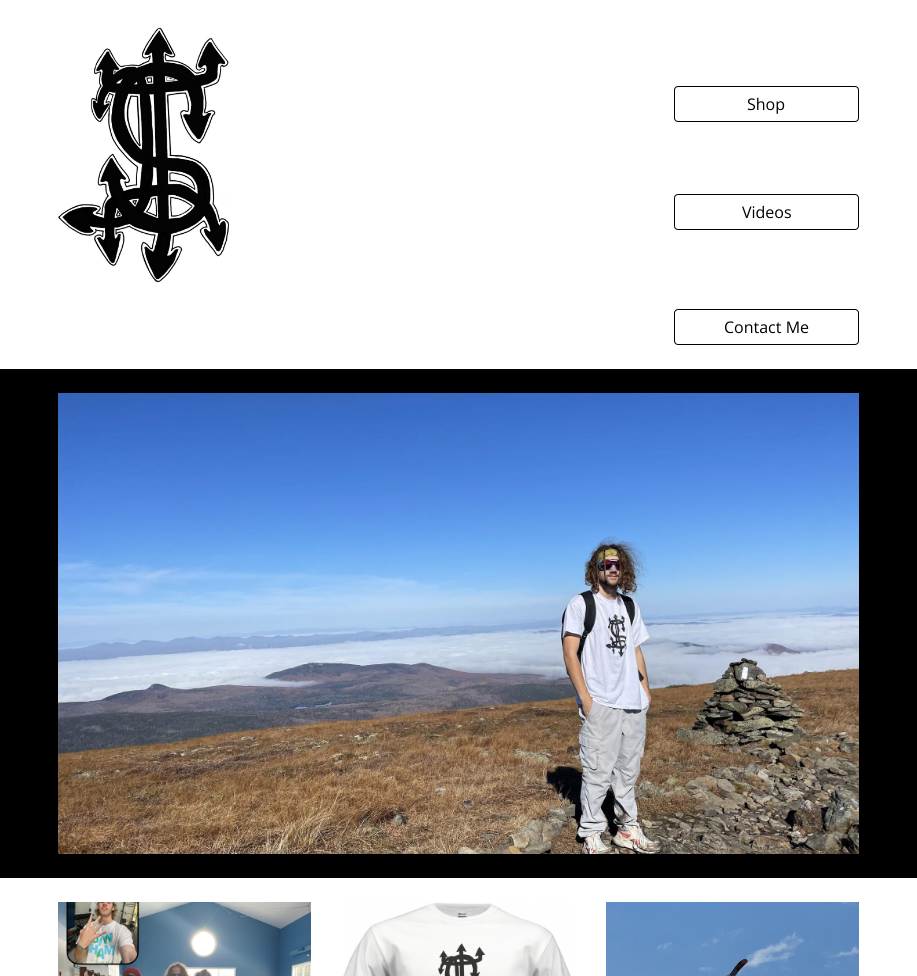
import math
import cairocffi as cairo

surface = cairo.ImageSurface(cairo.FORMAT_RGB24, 917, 976)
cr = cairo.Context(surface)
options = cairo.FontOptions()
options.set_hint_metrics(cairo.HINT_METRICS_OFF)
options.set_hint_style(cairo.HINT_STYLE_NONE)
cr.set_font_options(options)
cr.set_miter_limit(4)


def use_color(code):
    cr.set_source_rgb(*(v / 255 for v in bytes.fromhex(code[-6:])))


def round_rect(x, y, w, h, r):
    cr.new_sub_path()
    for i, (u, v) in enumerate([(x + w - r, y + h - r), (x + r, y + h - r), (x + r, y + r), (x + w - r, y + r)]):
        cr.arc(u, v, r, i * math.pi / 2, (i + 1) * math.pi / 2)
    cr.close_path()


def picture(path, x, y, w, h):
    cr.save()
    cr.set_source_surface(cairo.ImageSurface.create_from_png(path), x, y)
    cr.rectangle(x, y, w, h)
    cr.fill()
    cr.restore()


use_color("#ffffff")
cr.paint()
picture("img1.png", 58, 27, 172, 256)
round_rect(674.5, 86.5, 184, 35, 3.5)
use_color("#000000")
cr.set_line_width(1)
cr.stroke()
cr.select_font_face("Open Sans")
cr.set_font_size(16)
cr.move_to(747, 110)
cr.show_text("Shop")
round_rect(674.5, 194.5, 184, 35, 3.5)
cr.stroke()
cr.move_to(742, 218)
cr.show_text("Videos")
round_rect(674.5, 309.5, 184, 35, 3.5)
cr.stroke()
cr.move_to(724, 333)
cr.show_text("Contact Me")
cr.rectangle(0, 369, 917, 509)
cr.fill()
picture("img2.png", 58, 393, 801, 461)
picture("img3.png", 58, 902, 253, 74)
picture("img4.png", 343, 902, 228, 74)
picture("img5.png", 606, 902, 253, 74)
surface.write_to_png("result.png")
